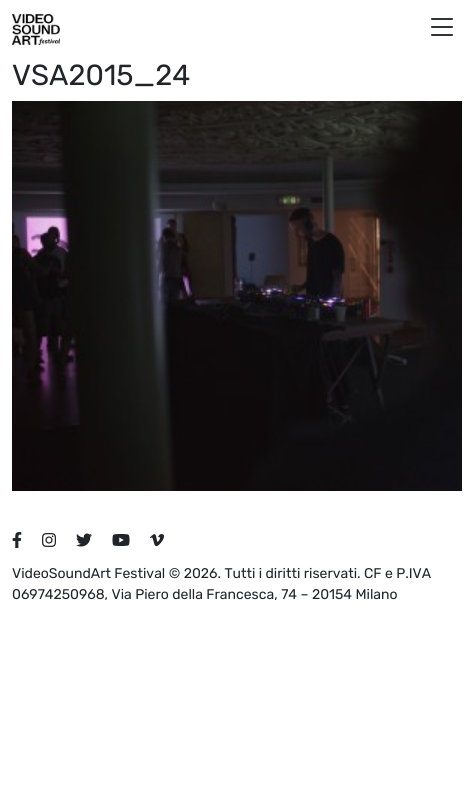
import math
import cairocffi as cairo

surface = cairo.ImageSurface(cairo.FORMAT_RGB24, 474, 793)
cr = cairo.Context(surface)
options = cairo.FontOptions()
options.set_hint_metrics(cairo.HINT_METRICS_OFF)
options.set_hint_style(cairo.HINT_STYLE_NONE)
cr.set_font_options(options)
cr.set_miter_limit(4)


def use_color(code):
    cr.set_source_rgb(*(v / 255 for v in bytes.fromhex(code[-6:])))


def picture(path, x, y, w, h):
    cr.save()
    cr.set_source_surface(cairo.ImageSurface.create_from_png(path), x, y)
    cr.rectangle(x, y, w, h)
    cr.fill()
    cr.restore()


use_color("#ffffff")
cr.paint()
picture("img1.png", 12, 14, 48, 31)
picture("img2.png", 431, 18, 22, 18)
cr.select_font_face("Rubik")
cr.set_font_size(29)
use_color("#212529")
cr.move_to(12, 85)
cr.show_text("VSA2015_24")
picture("img3.png", 12, 101, 450, 390)
picture("img4.png", 12, 532, 10, 16)
picture("img5.png", 42, 533, 14, 14)
picture("img6.png", 76, 533, 16, 14)
picture("img7.png", 112, 534, 18, 12)
picture("img8.png", 150, 534, 14, 13)
cr.set_font_size(14)
cr.move_to(12, 578)
cr.show_text("VideoSoundArt Festival © 2026. Tutti i diritti riservati. CF e P.IVA")
cr.move_to(12, 599)
cr.show_text("06974250968, Via Piero della Francesca, 74 – 20154 Milano")
surface.write_to_png("result.png")
